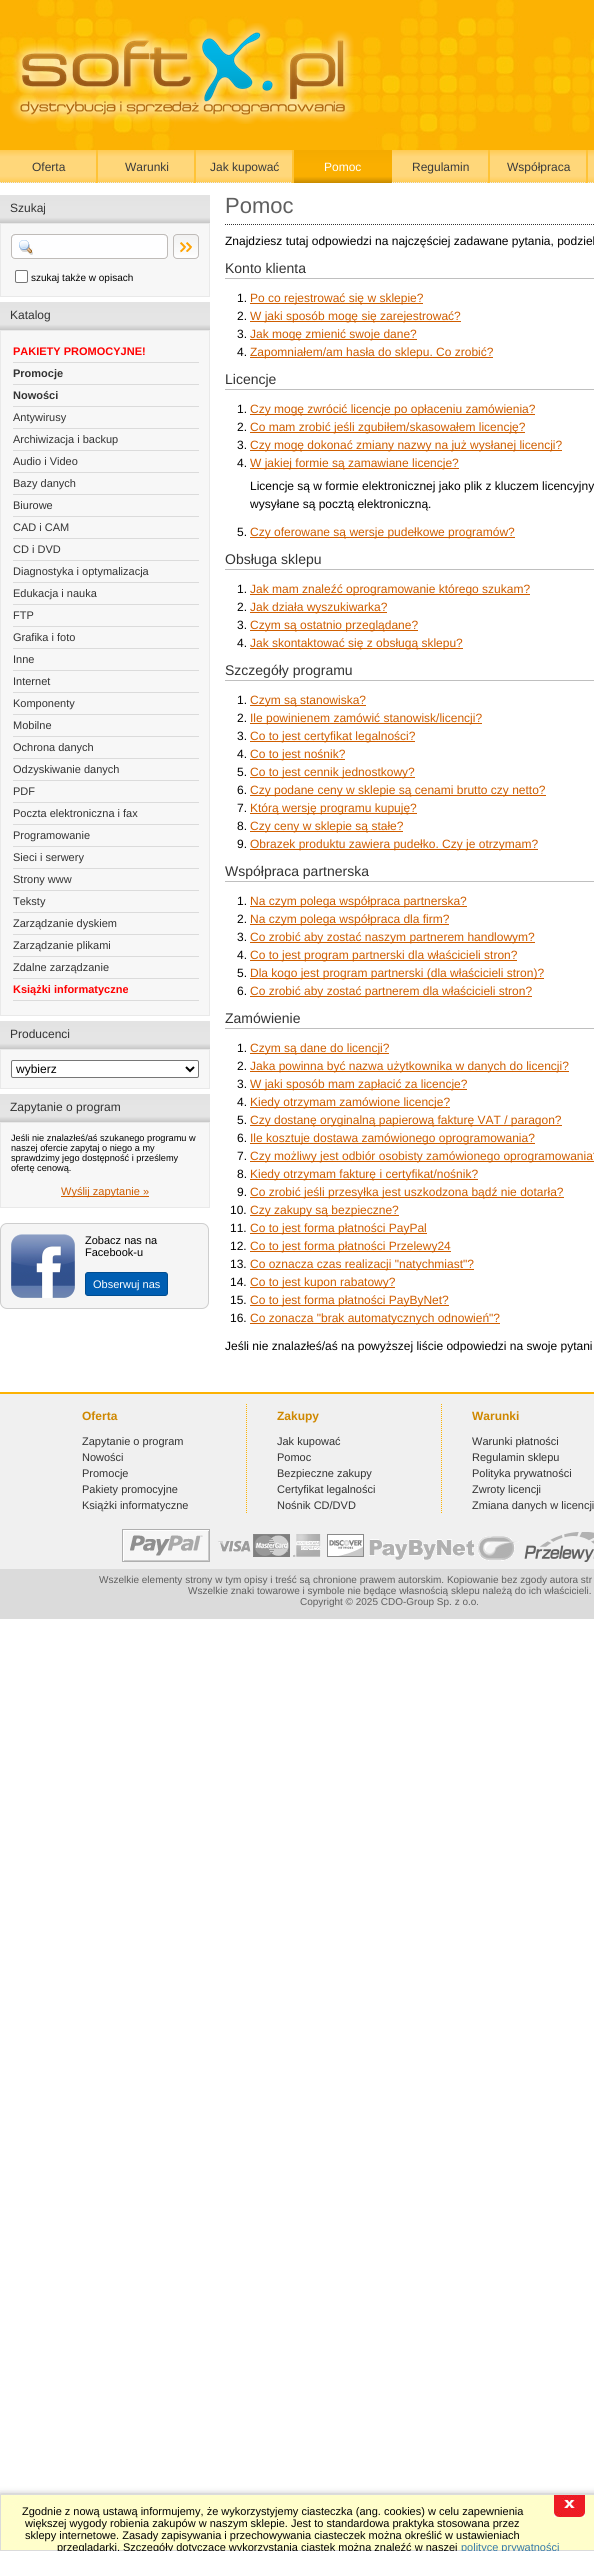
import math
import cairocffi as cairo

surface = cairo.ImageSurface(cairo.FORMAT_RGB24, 594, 2551)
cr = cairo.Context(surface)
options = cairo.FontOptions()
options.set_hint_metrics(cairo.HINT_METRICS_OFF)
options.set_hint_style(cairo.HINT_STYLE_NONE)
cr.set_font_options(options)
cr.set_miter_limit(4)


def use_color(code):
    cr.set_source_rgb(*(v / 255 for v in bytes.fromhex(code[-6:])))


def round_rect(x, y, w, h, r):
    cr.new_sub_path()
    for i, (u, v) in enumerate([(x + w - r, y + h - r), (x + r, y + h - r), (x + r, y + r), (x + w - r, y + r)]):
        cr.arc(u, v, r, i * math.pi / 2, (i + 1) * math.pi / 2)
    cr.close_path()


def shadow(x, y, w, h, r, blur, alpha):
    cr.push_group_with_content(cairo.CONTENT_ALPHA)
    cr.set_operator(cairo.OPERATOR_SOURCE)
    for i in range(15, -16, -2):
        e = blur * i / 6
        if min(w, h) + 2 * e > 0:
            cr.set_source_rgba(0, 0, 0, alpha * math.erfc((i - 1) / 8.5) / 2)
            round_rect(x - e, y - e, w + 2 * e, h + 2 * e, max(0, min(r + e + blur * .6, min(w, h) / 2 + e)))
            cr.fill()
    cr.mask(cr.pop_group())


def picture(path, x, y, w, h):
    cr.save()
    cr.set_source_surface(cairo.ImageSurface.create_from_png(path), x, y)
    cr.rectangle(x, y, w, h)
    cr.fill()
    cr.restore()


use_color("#ffffff")
cr.paint()
picture("img1.png", 0, 0, 594, 150)
picture("img2.png", 10, 23, 345, 101)
picture("img3.png", 0, 150, 594, 33)
use_color("#ffc336")
cr.rectangle(96, 150, 2, 33)
cr.fill()
cr.select_font_face("Liberation Sans")
cr.set_font_size(12)
use_color("#3b3b3b")
cr.move_to(32, 171)
cr.show_text("Oferta")
use_color("#ffc336")
cr.rectangle(194, 150, 2, 33)
cr.fill()
use_color("#3b3b3b")
cr.move_to(125, 171)
cr.show_text("Warunki")
use_color("#ffc336")
cr.rectangle(292, 150, 2, 33)
cr.fill()
use_color("#3b3b3b")
cr.move_to(210, 171)
cr.show_text("Jak kupować")
picture("img4.png", 294, 150, 98, 33)
use_color("#ffffff")
cr.move_to(324, 171)
cr.show_text("Pomoc")
use_color("#ffc336")
cr.rectangle(488, 150, 2, 33)
cr.fill()
use_color("#3b3b3b")
cr.move_to(412, 171)
cr.show_text("Regulamin")
use_color("#ffc336")
cr.rectangle(586, 150, 2, 33)
cr.fill()
use_color("#3b3b3b")
cr.move_to(507, 171)
cr.show_text("Współpraca")
picture("img5.png", 0, 195, 210, 28)
use_color("#333333")
cr.move_to(10, 212)
cr.show_text("Szukaj")
use_color("#f7f7f7")
cr.rectangle(0.5, 223.5, 209, 73)
cr.fill_preserve()
use_color("#e9e9e9")
cr.set_line_width(1)
cr.stroke()
picture("img6.png", 11, 234, 188, 25)
use_color("#ffffff")
round_rect(15.5, 270.5, 12, 12, 1.5)
cr.fill_preserve()
use_color("#767676")
cr.stroke()
cr.set_font_size(10)
use_color("#000000")
cr.move_to(31, 281)
cr.show_text("szukaj także w opisach")
picture("img5.png", 0, 302, 210, 28)
cr.set_font_size(12)
use_color("#333333")
cr.move_to(10, 319)
cr.show_text("Katalog")
use_color("#f7f7f7")
cr.rectangle(0.5, 330.5, 209, 685)
cr.fill_preserve()
use_color("#e9e9e9")
cr.stroke()
use_color("#dbdbdb")
cr.rectangle(13, 362, 186, 1)
cr.fill()
cr.select_font_face("Liberation Sans", cairo.FONT_SLANT_NORMAL, cairo.FONT_WEIGHT_BOLD)
cr.set_font_size(11)
use_color("#ff0000")
cr.move_to(13, 355)
cr.show_text("PAKIETY PROMOCYJNE!")
use_color("#dbdbdb")
cr.rectangle(13, 384, 186, 1)
cr.fill()
use_color("#333333")
cr.move_to(13, 377)
cr.show_text("Promocje")
use_color("#dbdbdb")
cr.rectangle(13, 406, 186, 1)
cr.fill()
use_color("#333333")
cr.move_to(13, 399)
cr.show_text("Nowości")
use_color("#dbdbdb")
cr.rectangle(13, 428, 186, 1)
cr.fill()
cr.select_font_face("Liberation Sans")
use_color("#333333")
cr.move_to(13, 421)
cr.show_text("Antywirusy")
use_color("#dbdbdb")
cr.rectangle(13, 450, 186, 1)
cr.fill()
use_color("#333333")
cr.move_to(13, 443)
cr.show_text("Archiwizacja i backup")
use_color("#dbdbdb")
cr.rectangle(13, 472, 186, 1)
cr.fill()
use_color("#333333")
cr.move_to(13, 465)
cr.show_text("Audio i Video")
use_color("#dbdbdb")
cr.rectangle(13, 494, 186, 1)
cr.fill()
use_color("#333333")
cr.move_to(13, 487)
cr.show_text("Bazy danych")
use_color("#dbdbdb")
cr.rectangle(13, 516, 186, 1)
cr.fill()
use_color("#333333")
cr.move_to(13, 509)
cr.show_text("Biurowe")
use_color("#dbdbdb")
cr.rectangle(13, 538, 186, 1)
cr.fill()
use_color("#333333")
cr.move_to(13, 531)
cr.show_text("CAD i CAM")
use_color("#dbdbdb")
cr.rectangle(13, 560, 186, 1)
cr.fill()
use_color("#333333")
cr.move_to(13, 553)
cr.show_text("CD i DVD")
use_color("#dbdbdb")
cr.rectangle(13, 582, 186, 1)
cr.fill()
use_color("#333333")
cr.move_to(13, 575)
cr.show_text("Diagnostyka i optymalizacja")
use_color("#dbdbdb")
cr.rectangle(13, 604, 186, 1)
cr.fill()
use_color("#333333")
cr.move_to(13, 597)
cr.show_text("Edukacja i nauka")
use_color("#dbdbdb")
cr.rectangle(13, 626, 186, 1)
cr.fill()
use_color("#333333")
cr.move_to(13, 619)
cr.show_text("FTP")
use_color("#dbdbdb")
cr.rectangle(13, 648, 186, 1)
cr.fill()
use_color("#333333")
cr.move_to(13, 641)
cr.show_text("Grafika i foto")
use_color("#dbdbdb")
cr.rectangle(13, 670, 186, 1)
cr.fill()
use_color("#333333")
cr.move_to(13, 663)
cr.show_text("Inne")
use_color("#dbdbdb")
cr.rectangle(13, 692, 186, 1)
cr.fill()
use_color("#333333")
cr.move_to(13, 685)
cr.show_text("Internet")
use_color("#dbdbdb")
cr.rectangle(13, 714, 186, 1)
cr.fill()
use_color("#333333")
cr.move_to(13, 707)
cr.show_text("Komponenty")
use_color("#dbdbdb")
cr.rectangle(13, 736, 186, 1)
cr.fill()
use_color("#333333")
cr.move_to(13, 729)
cr.show_text("Mobilne")
use_color("#dbdbdb")
cr.rectangle(13, 758, 186, 1)
cr.fill()
use_color("#333333")
cr.move_to(13, 751)
cr.show_text("Ochrona danych")
use_color("#dbdbdb")
cr.rectangle(13, 780, 186, 1)
cr.fill()
use_color("#333333")
cr.move_to(13, 773)
cr.show_text("Odzyskiwanie danych")
use_color("#dbdbdb")
cr.rectangle(13, 802, 186, 1)
cr.fill()
use_color("#333333")
cr.move_to(13, 795)
cr.show_text("PDF")
use_color("#dbdbdb")
cr.rectangle(13, 824, 186, 1)
cr.fill()
use_color("#333333")
cr.move_to(13, 817)
cr.show_text("Poczta elektroniczna i fax")
use_color("#dbdbdb")
cr.rectangle(13, 846, 186, 1)
cr.fill()
use_color("#333333")
cr.move_to(13, 839)
cr.show_text("Programowanie")
use_color("#dbdbdb")
cr.rectangle(13, 868, 186, 1)
cr.fill()
use_color("#333333")
cr.move_to(13, 861)
cr.show_text("Sieci i serwery")
use_color("#dbdbdb")
cr.rectangle(13, 890, 186, 1)
cr.fill()
use_color("#333333")
cr.move_to(13, 883)
cr.show_text("Strony www")
use_color("#dbdbdb")
cr.rectangle(13, 912, 186, 1)
cr.fill()
use_color("#333333")
cr.move_to(13, 905)
cr.show_text("Teksty")
use_color("#dbdbdb")
cr.rectangle(13, 934, 186, 1)
cr.fill()
use_color("#333333")
cr.move_to(13, 927)
cr.show_text("Zarządzanie dyskiem")
use_color("#dbdbdb")
cr.rectangle(13, 956, 186, 1)
cr.fill()
use_color("#333333")
cr.move_to(13, 949)
cr.show_text("Zarządzanie plikami")
use_color("#dbdbdb")
cr.rectangle(13, 978, 186, 1)
cr.fill()
use_color("#333333")
cr.move_to(13, 971)
cr.show_text("Zdalne zarządzanie")
use_color("#dbdbdb")
cr.rectangle(13, 1000, 186, 1)
cr.fill()
cr.select_font_face("Liberation Sans", cairo.FONT_SLANT_NORMAL, cairo.FONT_WEIGHT_BOLD)
use_color("#ff0000")
cr.move_to(13, 993)
cr.show_text("Książki informatyczne")
picture("img5.png", 0, 1021, 210, 28)
cr.select_font_face("Liberation Sans")
cr.set_font_size(12)
use_color("#333333")
cr.move_to(10, 1038)
cr.show_text("Producenci")
use_color("#f7f7f7")
cr.rectangle(0.5, 1049.5, 209, 39)
cr.fill_preserve()
use_color("#e9e9e9")
cr.stroke()
use_color("#ffffff")
round_rect(11.5, 1060.5, 187, 17, 1.5)
cr.fill_preserve()
use_color("#767676")
cr.stroke()
cr.new_path()
cr.move_to(186, 1067)
cr.line_to(190, 1071)
cr.line_to(194, 1067)
use_color("#000000")
cr.set_line_width(2)
cr.stroke()
cr.move_to(16, 1073)
cr.show_text("wybierz")
picture("img5.png", 0, 1094, 210, 28)
use_color("#333333")
cr.move_to(10, 1111)
cr.show_text("Zapytanie o program")
use_color("#f7f7f7")
cr.rectangle(0.5, 1122.5, 209, 85)
cr.fill_preserve()
use_color("#e9e9e9")
cr.set_line_width(1)
cr.stroke()
cr.set_font_size(9.2)
use_color("#000000")
cr.move_to(11, 1141)
cr.show_text("Jeśli nie znalazłeś/aś szukanego programu w")
cr.move_to(11, 1151)
cr.show_text("naszej ofercie zapytaj o niego a my")
cr.move_to(11, 1161)
cr.show_text("sprawdzimy jego dostępność i prześlemy")
cr.move_to(11, 1171)
cr.show_text("ofertę cenową.")
use_color("#cf5d00")
cr.rectangle(61, 1196, 88, 1)
cr.fill()
cr.set_font_size(11)
cr.move_to(61, 1195)
cr.show_text("Wyślij zapytanie »")
use_color("#f5f5f5")
round_rect(0.5, 1223.5, 208, 85, 6.5)
cr.fill_preserve()
use_color("#cecece")
cr.stroke()
picture("img7.png", 11, 1234, 64, 64)
use_color("#000000")
cr.move_to(85, 1244)
cr.show_text("Zobacz nas na")
cr.move_to(85, 1256)
cr.show_text("Facebook-u")
use_color("#005eb2")
round_rect(85.5, 1272.5, 82, 23, 2.5)
cr.fill_preserve()
use_color("#004c8f")
cr.stroke()
use_color("#ffffff")
cr.move_to(93, 1288)
cr.show_text("Obserwuj nas")
cr.new_path()
cr.move_to(225, 224.5)
cr.line_to(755, 224.5)
use_color("#333333")
cr.set_dash([1, 1])
cr.stroke()
cr.set_font_size(22)
use_color("#5f5f5f")
cr.move_to(225, 213)
cr.show_text("Pomoc")
cr.set_font_size(12)
use_color("#000000")
cr.move_to(225, 245)
cr.show_text("Znajdziesz tutaj odpowiedzi na najczęściej zadawane pytania, podziel")
use_color("#bfbfbf")
cr.rectangle(225, 278, 369, 1)
cr.fill()
cr.set_font_size(14)
use_color("#333333")
cr.move_to(225, 273)
cr.show_text("Konto klienta")
cr.set_font_size(12)
use_color("#000000")
cr.move_to(237, 302)
cr.show_text("1.")
use_color("#cf5d00")
cr.rectangle(250, 303, 173, 1)
cr.fill()
cr.move_to(250, 302)
cr.show_text("Po co rejestrować się w sklepie?")
use_color("#000000")
cr.move_to(237, 320)
cr.show_text("2.")
use_color("#cf5d00")
cr.rectangle(250, 321, 211, 1)
cr.fill()
cr.move_to(250, 320)
cr.show_text("W jaki sposób mogę się zarejestrować?")
use_color("#000000")
cr.move_to(237, 338)
cr.show_text("3.")
use_color("#cf5d00")
cr.rectangle(250, 339, 167, 1)
cr.fill()
cr.move_to(250, 338)
cr.show_text("Jak mogę zmienić swoje dane?")
use_color("#000000")
cr.move_to(237, 356)
cr.show_text("4.")
use_color("#cf5d00")
cr.rectangle(250, 357, 243, 1)
cr.fill()
cr.move_to(250, 356)
cr.show_text("Zapomniałem/am hasła do sklepu. Co zrobić?")
use_color("#bfbfbf")
cr.rectangle(225, 389, 369, 1)
cr.fill()
cr.set_font_size(14)
use_color("#333333")
cr.move_to(225, 384)
cr.show_text("Licencje")
cr.set_font_size(12)
use_color("#000000")
cr.move_to(237, 413)
cr.show_text("1.")
use_color("#cf5d00")
cr.rectangle(250, 414, 285, 1)
cr.fill()
cr.move_to(250, 413)
cr.show_text("Czy mogę zwrócić licencje po opłaceniu zamówienia?")
use_color("#000000")
cr.move_to(237, 431)
cr.show_text("2.")
use_color("#cf5d00")
cr.rectangle(250, 432, 275, 1)
cr.fill()
cr.move_to(250, 431)
cr.show_text("Co mam zrobić jeśli zgubiłem/skasowałem licencję?")
use_color("#000000")
cr.move_to(237, 449)
cr.show_text("3.")
use_color("#cf5d00")
cr.rectangle(250, 450, 312, 1)
cr.fill()
cr.move_to(250, 449)
cr.show_text("Czy mogę dokonać zmiany nazwy na już wysłanej licencji?")
use_color("#000000")
cr.move_to(237, 467)
cr.show_text("4.")
use_color("#cf5d00")
cr.rectangle(250, 468, 209, 1)
cr.fill()
cr.move_to(250, 467)
cr.show_text("W jakiej formie są zamawiane licencje?")
use_color("#000000")
cr.move_to(250, 490)
cr.show_text("Licencje są w formie elektronicznej jako plik z kluczem licencyjny")
cr.move_to(250, 508)
cr.show_text("wysyłane są pocztą elektroniczną.")
cr.move_to(237, 536)
cr.show_text("5.")
use_color("#cf5d00")
cr.rectangle(250, 537, 265, 1)
cr.fill()
cr.move_to(250, 536)
cr.show_text("Czy oferowane są wersje pudełkowe programów?")
use_color("#bfbfbf")
cr.rectangle(225, 569, 369, 1)
cr.fill()
cr.set_font_size(14)
use_color("#333333")
cr.move_to(225, 564)
cr.show_text("Obsługa sklepu")
cr.set_font_size(12)
use_color("#000000")
cr.move_to(237, 593)
cr.show_text("1.")
use_color("#cf5d00")
cr.rectangle(250, 594, 280, 1)
cr.fill()
cr.move_to(250, 593)
cr.show_text("Jak mam znaleźć oprogramowanie którego szukam?")
use_color("#000000")
cr.move_to(237, 611)
cr.show_text("2.")
use_color("#cf5d00")
cr.rectangle(250, 612, 137, 1)
cr.fill()
cr.move_to(250, 611)
cr.show_text("Jak działa wyszukiwarka?")
use_color("#000000")
cr.move_to(237, 629)
cr.show_text("3.")
use_color("#cf5d00")
cr.rectangle(250, 630, 168, 1)
cr.fill()
cr.move_to(250, 629)
cr.show_text("Czym są ostatnio przeglądane?")
use_color("#000000")
cr.move_to(237, 647)
cr.show_text("4.")
use_color("#cf5d00")
cr.rectangle(250, 648, 213, 1)
cr.fill()
cr.move_to(250, 647)
cr.show_text("Jak skontaktować się z obsługą sklepu?")
use_color("#bfbfbf")
cr.rectangle(225, 680, 369, 1)
cr.fill()
cr.set_font_size(14)
use_color("#333333")
cr.move_to(225, 675)
cr.show_text("Szczegóły programu")
cr.set_font_size(12)
use_color("#000000")
cr.move_to(237, 704)
cr.show_text("1.")
use_color("#cf5d00")
cr.rectangle(250, 705, 116, 1)
cr.fill()
cr.move_to(250, 704)
cr.show_text("Czym są stanowiska?")
use_color("#000000")
cr.move_to(237, 722)
cr.show_text("2.")
use_color("#cf5d00")
cr.rectangle(250, 723, 232, 1)
cr.fill()
cr.move_to(250, 722)
cr.show_text("Ile powinienem zamówić stanowisk/licencji?")
use_color("#000000")
cr.move_to(237, 740)
cr.show_text("3.")
use_color("#cf5d00")
cr.rectangle(250, 741, 165, 1)
cr.fill()
cr.move_to(250, 740)
cr.show_text("Co to jest certyfikat legalności?")
use_color("#000000")
cr.move_to(237, 758)
cr.show_text("4.")
use_color("#cf5d00")
cr.rectangle(250, 759, 95, 1)
cr.fill()
cr.move_to(250, 758)
cr.show_text("Co to jest nośnik?")
use_color("#000000")
cr.move_to(237, 776)
cr.show_text("5.")
use_color("#cf5d00")
cr.rectangle(250, 777, 165, 1)
cr.fill()
cr.move_to(250, 776)
cr.show_text("Co to jest cennik jednostkowy?")
use_color("#000000")
cr.move_to(237, 794)
cr.show_text("6.")
use_color("#cf5d00")
cr.rectangle(250, 795, 296, 1)
cr.fill()
cr.move_to(250, 794)
cr.show_text("Czy podane ceny w sklepie są cenami brutto czy netto?")
use_color("#000000")
cr.move_to(237, 812)
cr.show_text("7.")
use_color("#cf5d00")
cr.rectangle(250, 813, 167, 1)
cr.fill()
cr.move_to(250, 812)
cr.show_text("Którą wersję programu kupuję?")
use_color("#000000")
cr.move_to(237, 830)
cr.show_text("8.")
use_color("#cf5d00")
cr.rectangle(250, 831, 153, 1)
cr.fill()
cr.move_to(250, 830)
cr.show_text("Czy ceny w sklepie są stałe?")
use_color("#000000")
cr.move_to(237, 848)
cr.show_text("9.")
use_color("#cf5d00")
cr.rectangle(250, 849, 288, 1)
cr.fill()
cr.move_to(250, 848)
cr.show_text("Obrazek produktu zawiera pudełko. Czy je otrzymam?")
use_color("#bfbfbf")
cr.rectangle(225, 881, 369, 1)
cr.fill()
cr.set_font_size(14)
use_color("#333333")
cr.move_to(225, 876)
cr.show_text("Współpraca partnerska")
cr.set_font_size(12)
use_color("#000000")
cr.move_to(237, 905)
cr.show_text("1.")
use_color("#cf5d00")
cr.rectangle(250, 906, 217, 1)
cr.fill()
cr.move_to(250, 905)
cr.show_text("Na czym polega współpraca partnerska?")
use_color("#000000")
cr.move_to(237, 923)
cr.show_text("2.")
use_color("#cf5d00")
cr.rectangle(250, 924, 199, 1)
cr.fill()
cr.move_to(250, 923)
cr.show_text("Na czym polega współpraca dla firm?")
use_color("#000000")
cr.move_to(237, 941)
cr.show_text("3.")
use_color("#cf5d00")
cr.rectangle(250, 942, 285, 1)
cr.fill()
cr.move_to(250, 941)
cr.show_text("Co zrobić aby zostać naszym partnerem handlowym?")
use_color("#000000")
cr.move_to(237, 959)
cr.show_text("4.")
use_color("#cf5d00")
cr.rectangle(250, 960, 267, 1)
cr.fill()
cr.move_to(250, 959)
cr.show_text("Co to jest program partnerski dla właścicieli stron?")
use_color("#000000")
cr.move_to(237, 977)
cr.show_text("5.")
use_color("#cf5d00")
cr.rectangle(250, 978, 294, 1)
cr.fill()
cr.move_to(250, 977)
cr.show_text("Dla kogo jest program partnerski (dla właścicieli stron)?")
use_color("#000000")
cr.move_to(237, 995)
cr.show_text("6.")
use_color("#cf5d00")
cr.rectangle(250, 996, 282, 1)
cr.fill()
cr.move_to(250, 995)
cr.show_text("Co zrobić aby zostać partnerem dla właścicieli stron?")
use_color("#bfbfbf")
cr.rectangle(225, 1028, 369, 1)
cr.fill()
cr.set_font_size(14)
use_color("#333333")
cr.move_to(225, 1023)
cr.show_text("Zamówienie")
cr.set_font_size(12)
use_color("#000000")
cr.move_to(237, 1052)
cr.show_text("1.")
use_color("#cf5d00")
cr.rectangle(250, 1053, 139, 1)
cr.fill()
cr.move_to(250, 1052)
cr.show_text("Czym są dane do licencji?")
use_color("#000000")
cr.move_to(237, 1070)
cr.show_text("2.")
use_color("#cf5d00")
cr.rectangle(250, 1071, 319, 1)
cr.fill()
cr.move_to(250, 1070)
cr.show_text("Jaka powinna być nazwa użytkownika w danych do licencji?")
use_color("#000000")
cr.move_to(237, 1088)
cr.show_text("3.")
use_color("#cf5d00")
cr.rectangle(250, 1089, 217, 1)
cr.fill()
cr.move_to(250, 1088)
cr.show_text("W jaki sposób mam zapłacić za licencje?")
use_color("#000000")
cr.move_to(237, 1106)
cr.show_text("4.")
use_color("#cf5d00")
cr.rectangle(250, 1107, 200, 1)
cr.fill()
cr.move_to(250, 1106)
cr.show_text("Kiedy otrzymam zamówione licencje?")
use_color("#000000")
cr.move_to(237, 1124)
cr.show_text("5.")
use_color("#cf5d00")
cr.rectangle(250, 1125, 312, 1)
cr.fill()
cr.move_to(250, 1124)
cr.show_text("Czy dostanę oryginalną papierową fakturę VAT / paragon?")
use_color("#000000")
cr.move_to(237, 1142)
cr.show_text("6.")
use_color("#cf5d00")
cr.rectangle(250, 1143, 285, 1)
cr.fill()
cr.move_to(250, 1142)
cr.show_text("Ile kosztuje dostawa zamówionego oprogramowania?")
use_color("#000000")
cr.move_to(237, 1160)
cr.show_text("7.")
use_color("#cf5d00")
cr.rectangle(250, 1161, 344, 1)
cr.fill()
cr.move_to(250, 1160)
cr.show_text("Czy możliwy jest odbiór osobisty zamówionego oprogramowania?")
use_color("#000000")
cr.move_to(237, 1178)
cr.show_text("8.")
use_color("#cf5d00")
cr.rectangle(250, 1179, 228, 1)
cr.fill()
cr.move_to(250, 1178)
cr.show_text("Kiedy otrzymam fakturę i certyfikat/nośnik?")
use_color("#000000")
cr.move_to(237, 1196)
cr.show_text("9.")
use_color("#cf5d00")
cr.rectangle(250, 1197, 314, 1)
cr.fill()
cr.move_to(250, 1196)
cr.show_text("Co zrobić jeśli przesyłka jest uszkodzona bądź nie dotarła?")
use_color("#000000")
cr.move_to(230, 1214)
cr.show_text("10.")
use_color("#cf5d00")
cr.rectangle(250, 1215, 149, 1)
cr.fill()
cr.move_to(250, 1214)
cr.show_text("Czy zakupy są bezpieczne?")
use_color("#000000")
cr.move_to(230, 1232)
cr.show_text("11.")
use_color("#cf5d00")
cr.rectangle(250, 1233, 177, 1)
cr.fill()
cr.move_to(250, 1232)
cr.show_text("Co to jest forma płatności PayPal")
use_color("#000000")
cr.move_to(230, 1250)
cr.show_text("12.")
use_color("#cf5d00")
cr.rectangle(250, 1251, 201, 1)
cr.fill()
cr.move_to(250, 1250)
cr.show_text("Co to jest forma płatności Przelewy24")
use_color("#000000")
cr.move_to(230, 1268)
cr.show_text("13.")
use_color("#cf5d00")
cr.rectangle(250, 1269, 224, 1)
cr.fill()
cr.move_to(250, 1268)
cr.show_text("Co oznacza czas realizacji \"natychmiast\"?")
use_color("#000000")
cr.move_to(230, 1286)
cr.show_text("14.")
use_color("#cf5d00")
cr.rectangle(250, 1287, 145, 1)
cr.fill()
cr.move_to(250, 1286)
cr.show_text("Co to jest kupon rabatowy?")
use_color("#000000")
cr.move_to(230, 1304)
cr.show_text("15.")
use_color("#cf5d00")
cr.rectangle(250, 1305, 199, 1)
cr.fill()
cr.move_to(250, 1304)
cr.show_text("Co to jest forma płatności PayByNet?")
use_color("#000000")
cr.move_to(230, 1322)
cr.show_text("16.")
use_color("#cf5d00")
cr.rectangle(250, 1323, 250, 1)
cr.fill()
cr.move_to(250, 1322)
cr.show_text("Co zonacza \"brak automatycznych odnowień\"?")
use_color("#000000")
cr.move_to(225, 1350)
cr.show_text("Jeśli nie znalazłeś/aś na powyższej liście odpowiedzi na swoje pytani")
use_color("#f0f0f0")
cr.rectangle(0, 1394, 594, 175)
cr.fill()
use_color("#dbdbdb")
cr.rectangle(0, 1569, 594, 50)
cr.fill()
use_color("#fcb203")
cr.rectangle(0, 1392, 594, 2)
cr.fill()
cr.select_font_face("Liberation Sans", cairo.FONT_SLANT_NORMAL, cairo.FONT_WEIGHT_BOLD)
use_color("#cf8800")
cr.move_to(82, 1420)
cr.show_text("Oferta")
cr.select_font_face("Liberation Sans")
cr.set_font_size(11)
use_color("#333333")
cr.move_to(82, 1445)
cr.show_text("Zapytanie o program")
cr.move_to(82, 1461)
cr.show_text("Nowości")
cr.move_to(82, 1477)
cr.show_text("Promocje")
cr.move_to(82, 1493)
cr.show_text("Pakiety promocyjne")
cr.move_to(82, 1509)
cr.show_text("Książki informatyczne")
cr.new_path()
cr.move_to(246.5, 1404)
cr.line_to(246.5, 1514)
use_color("#fcb203")
cr.stroke()
cr.select_font_face("Liberation Sans", cairo.FONT_SLANT_NORMAL, cairo.FONT_WEIGHT_BOLD)
cr.set_font_size(12)
use_color("#cf8800")
cr.move_to(277, 1420)
cr.show_text("Zakupy")
cr.select_font_face("Liberation Sans")
cr.set_font_size(11)
use_color("#333333")
cr.move_to(277, 1445)
cr.show_text("Jak kupować")
cr.move_to(277, 1461)
cr.show_text("Pomoc")
cr.move_to(277, 1477)
cr.show_text("Bezpieczne zakupy")
cr.move_to(277, 1493)
cr.show_text("Certyfikat legalności")
cr.move_to(277, 1509)
cr.show_text("Nośnik CD/DVD")
cr.new_path()
cr.move_to(441.5, 1404)
cr.line_to(441.5, 1514)
use_color("#fcb203")
cr.stroke()
cr.select_font_face("Liberation Sans", cairo.FONT_SLANT_NORMAL, cairo.FONT_WEIGHT_BOLD)
cr.set_font_size(12)
use_color("#cf8800")
cr.move_to(472, 1420)
cr.show_text("Warunki")
cr.select_font_face("Liberation Sans")
cr.set_font_size(11)
use_color("#333333")
cr.move_to(472, 1445)
cr.show_text("Warunki płatności")
cr.move_to(472, 1461)
cr.show_text("Regulamin sklepu")
cr.move_to(472, 1477)
cr.show_text("Polityka prywatności")
cr.move_to(472, 1493)
cr.show_text("Zwroty licencji")
cr.move_to(472, 1509)
cr.show_text("Zmiana danych w licencji")
picture("img8.png", 122, 1529, 242, 33)
picture("img9.png", 369, 1536, 150, 25)
picture("img10.png", 524, 1532, 70, 30)
cr.set_font_size(10)
use_color("#5f5f5f")
cr.move_to(99, 1583)
cr.show_text("Wszelkie elementy strony w tym opisy i treść są chronione prawem autorskim. Kopiowanie bez zgody autora str")
cr.move_to(188, 1594)
cr.show_text("Wszelkie znaki towarowe i symbole nie będące własnością sklepu należą do ich właścicieli.")
cr.move_to(300, 1605)
cr.show_text("Copyright © 2025 CDO-Group Sp. z o.o.")
use_color("#000000")
shadow(0, 2499, 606, 47, 0, 5, 1)
use_color("#fffecb")
cr.rectangle(0.5, 2494.5, 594, 56)
cr.fill_preserve()
use_color("#dbdbdb")
cr.set_dash([])
cr.stroke()
cr.set_font_size(11)
use_color("#000000")
cr.move_to(22, 2515)
cr.show_text("Zgodnie z nową ustawą informujemy, że wykorzystyjemy ciasteczka (ang. cookies) w celu zapewnienia")
picture("img11.png", 554, 2495, 31, 22)
cr.move_to(25, 2527)
cr.show_text("większej wygody robienia zakupów w naszym sklepie. Jest to standardowa praktyka stosowana przez")
cr.move_to(25, 2539)
cr.show_text("sklepy internetowe. Zasady zapisywania i przechowywania ciasteczek można określić w ustawieniach")
cr.move_to(57, 2551)
cr.show_text("przeglądarki. Szczegóły dotyczące wykorzystania ciastek można znaleźć w naszej")
use_color("#367aa9")
cr.move_to(461, 2551)
cr.show_text("polityce prywatności")
surface.write_to_png("result.png")
